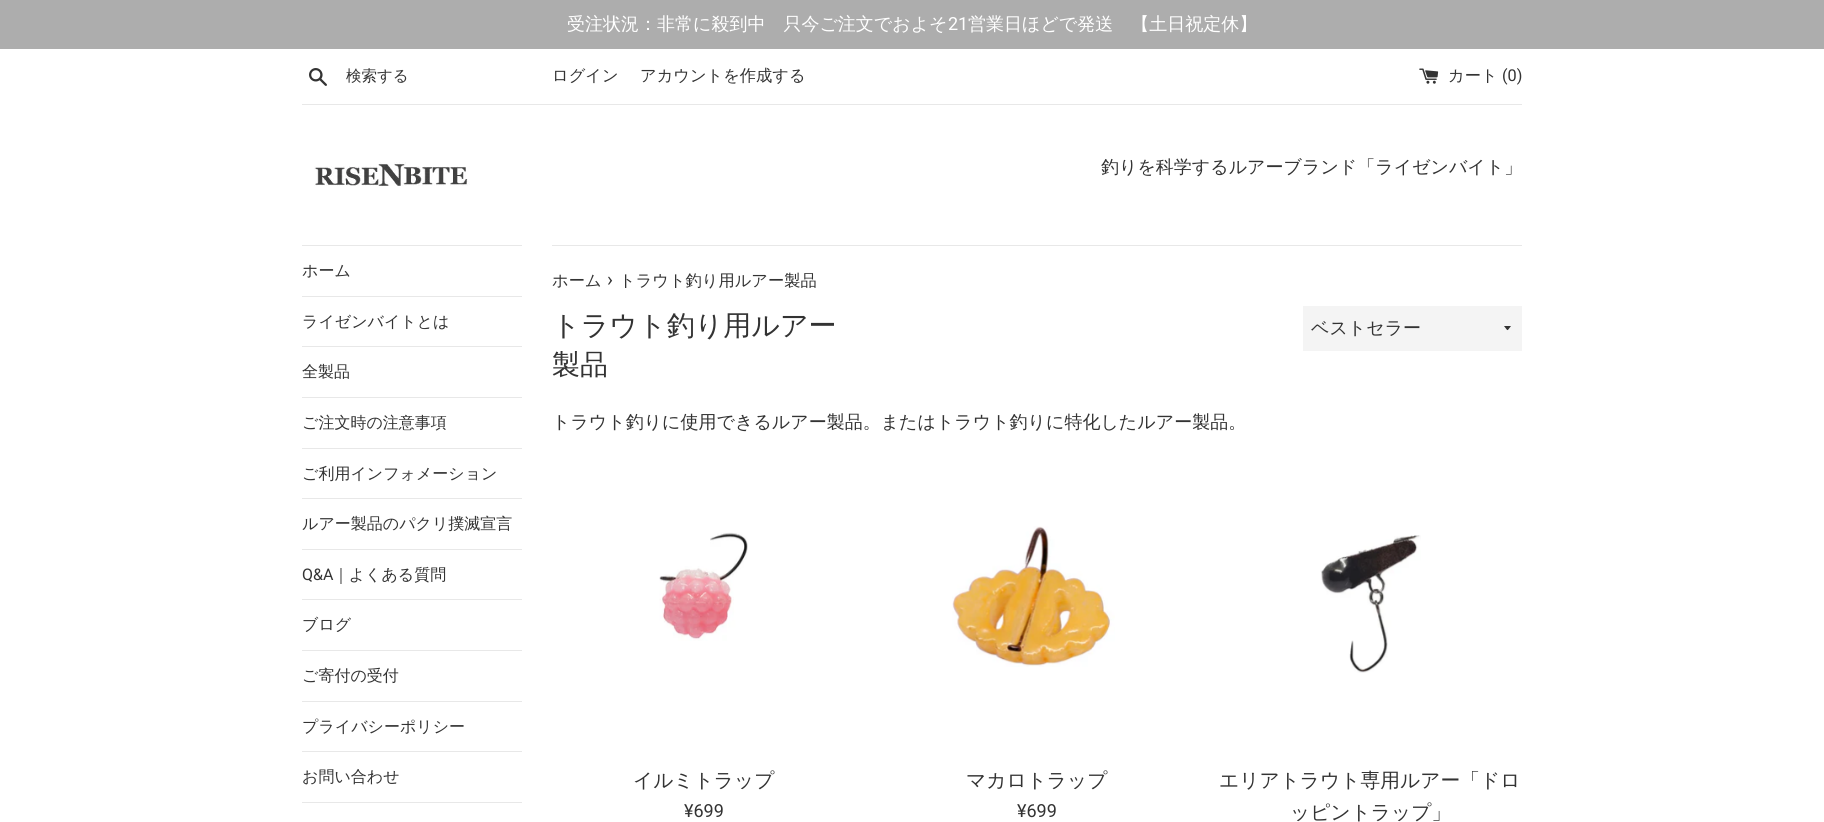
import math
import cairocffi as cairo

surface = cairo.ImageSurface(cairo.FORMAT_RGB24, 1824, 822)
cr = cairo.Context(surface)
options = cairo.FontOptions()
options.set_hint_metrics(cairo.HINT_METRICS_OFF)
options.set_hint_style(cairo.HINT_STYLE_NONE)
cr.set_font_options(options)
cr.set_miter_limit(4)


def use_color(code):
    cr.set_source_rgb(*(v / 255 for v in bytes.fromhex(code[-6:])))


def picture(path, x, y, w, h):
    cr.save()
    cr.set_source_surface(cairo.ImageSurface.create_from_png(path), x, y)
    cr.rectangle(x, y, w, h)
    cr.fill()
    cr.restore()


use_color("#ffffff")
cr.paint()
use_color("#adadad")
cr.rectangle(0, 0, 1824, 49)
cr.fill()
cr.select_font_face("WenQuanYi Zen Hei Medium")
cr.set_font_size(18)
use_color("#ffffff")
cr.move_to(567, 30)
cr.show_text("受注状況：非常に殺到中　只今ご注文でおよそ")
cr.select_font_face("Roboto")
cr.move_to(948, 30)
cr.show_text("21")
cr.select_font_face("WenQuanYi Zen Hei Medium")
cr.move_to(968, 30)
cr.show_text("営業日ほどで発送　【土日祝定休】")
picture("img1.png", 309, 68, 18, 18)
cr.set_font_size(15.5)
use_color("#333333")
cr.move_to(346, 81)
cr.show_text("検索する")
cr.set_font_size(16.25)
cr.move_to(552, 81)
cr.show_text("ログイン")
cr.move_to(640, 81)
cr.show_text("アカウントを作成する")
picture("img2.png", 1419, 68, 20, 16)
cr.move_to(1448, 81)
cr.show_text("カート")
cr.select_font_face("Roboto")
cr.move_to(1502, 81)
cr.show_text("(0)")
use_color("#e8e8e8")
cr.rectangle(302, 104, 1220, 1)
cr.fill()
picture("img3.png", 314, 162, 156, 24)
cr.select_font_face("WenQuanYi Zen Hei Medium")
cr.set_font_size(18)
use_color("#333333")
cr.move_to(1101, 173)
cr.show_text("釣りを科学するルアーブランド「ライゼンバイト」")
use_color("#e8e8e8")
cr.rectangle(302, 245, 220, 1)
cr.fill()
cr.rectangle(302, 296, 220, 1)
cr.fill()
cr.set_font_size(16)
use_color("#333333")
cr.move_to(302, 276)
cr.show_text("ホーム")
use_color("#e8e8e8")
cr.rectangle(302, 346, 220, 1)
cr.fill()
use_color("#333333")
cr.move_to(302, 327)
cr.show_text("ライゼンバイトとは")
use_color("#e8e8e8")
cr.rectangle(302, 397, 220, 1)
cr.fill()
use_color("#333333")
cr.move_to(302, 377)
cr.show_text("全製品")
use_color("#e8e8e8")
cr.rectangle(302, 448, 220, 1)
cr.fill()
use_color("#333333")
cr.move_to(302, 428)
cr.show_text("ご注文時の注意事項")
use_color("#e8e8e8")
cr.rectangle(302, 498, 220, 1)
cr.fill()
use_color("#333333")
cr.move_to(302, 479)
cr.show_text("ご利用インフォメーション")
use_color("#e8e8e8")
cr.rectangle(302, 549, 220, 1)
cr.fill()
use_color("#333333")
cr.move_to(302, 529)
cr.show_text("ルアー製品のパクリ撲滅宣言")
use_color("#e8e8e8")
cr.rectangle(302, 599, 220, 1)
cr.fill()
cr.select_font_face("Roboto")
use_color("#333333")
cr.move_to(302, 580)
cr.show_text("Q&A")
cr.select_font_face("WenQuanYi Zen Hei Medium")
cr.move_to(333, 580)
cr.show_text("｜よくある質問")
use_color("#e8e8e8")
cr.rectangle(302, 650, 220, 1)
cr.fill()
use_color("#333333")
cr.move_to(302, 630)
cr.show_text("ブログ")
use_color("#e8e8e8")
cr.rectangle(302, 701, 220, 1)
cr.fill()
use_color("#333333")
cr.move_to(302, 681)
cr.show_text("ご寄付の受付")
use_color("#e8e8e8")
cr.rectangle(302, 751, 220, 1)
cr.fill()
use_color("#333333")
cr.move_to(302, 732)
cr.show_text("プライバシーポリシー")
use_color("#e8e8e8")
cr.rectangle(302, 802, 220, 1)
cr.fill()
use_color("#333333")
cr.move_to(302, 782)
cr.show_text("お問い合わせ")
use_color("#e8e8e8")
cr.rectangle(552, 245, 970, 1)
cr.fill()
cr.set_font_size(16.25)
use_color("#333333")
cr.move_to(552, 286)
cr.show_text("ホーム")
cr.select_font_face("Roboto")
cr.set_font_size(19.75)
cr.move_to(607, 286)
cr.show_text("›")
cr.select_font_face("WenQuanYi Zen Hei Medium")
cr.set_font_size(16.25)
cr.move_to(619, 286)
cr.show_text("トラウト釣り用ルアー製品")
cr.set_font_size(28)
cr.move_to(552, 335)
cr.show_text("トラウト釣り用ルアー")
cr.move_to(552, 374)
cr.show_text("製品")
use_color("#f4f4f4")
cr.rectangle(1303, 306, 219, 45)
cr.fill()
use_color("#333333")
cr.new_path()
cr.move_to(1504, 326)
cr.curve_to(1508.5, 331.5, 1506.5, 331.5, 1511, 326)
cr.close_path()
cr.fill()
cr.set_font_size(18)
cr.move_to(1311, 334)
cr.show_text("ベストセラー")
cr.move_to(552, 428)
cr.show_text("トラウト釣りに使用できるルアー製品。またはトラウト釣りに特化したルアー製品。")
picture("img4.png", 659, 532, 89, 109)
cr.set_font_size(19.75)
cr.move_to(633, 787)
cr.show_text("イルミトラップ")
cr.select_font_face("Roboto")
cr.set_font_size(18)
cr.move_to(684, 817)
cr.show_text("¥699")
picture("img5.png", 952, 526, 163, 141)
cr.select_font_face("WenQuanYi Zen Hei Medium")
cr.set_font_size(19.75)
cr.move_to(966, 787)
cr.show_text("マカロトラップ")
cr.select_font_face("Roboto")
cr.set_font_size(18)
cr.move_to(1017, 817)
cr.show_text("¥699")
picture("img6.png", 1320, 535, 101, 138)
cr.select_font_face("WenQuanYi Zen Hei Medium")
cr.set_font_size(19.75)
cr.move_to(1219, 787)
cr.show_text("エリアトラウト専用ルアー「ドロ")
cr.move_to(1290, 819)
cr.show_text("ッピントラップ」")
surface.write_to_png("result.png")
